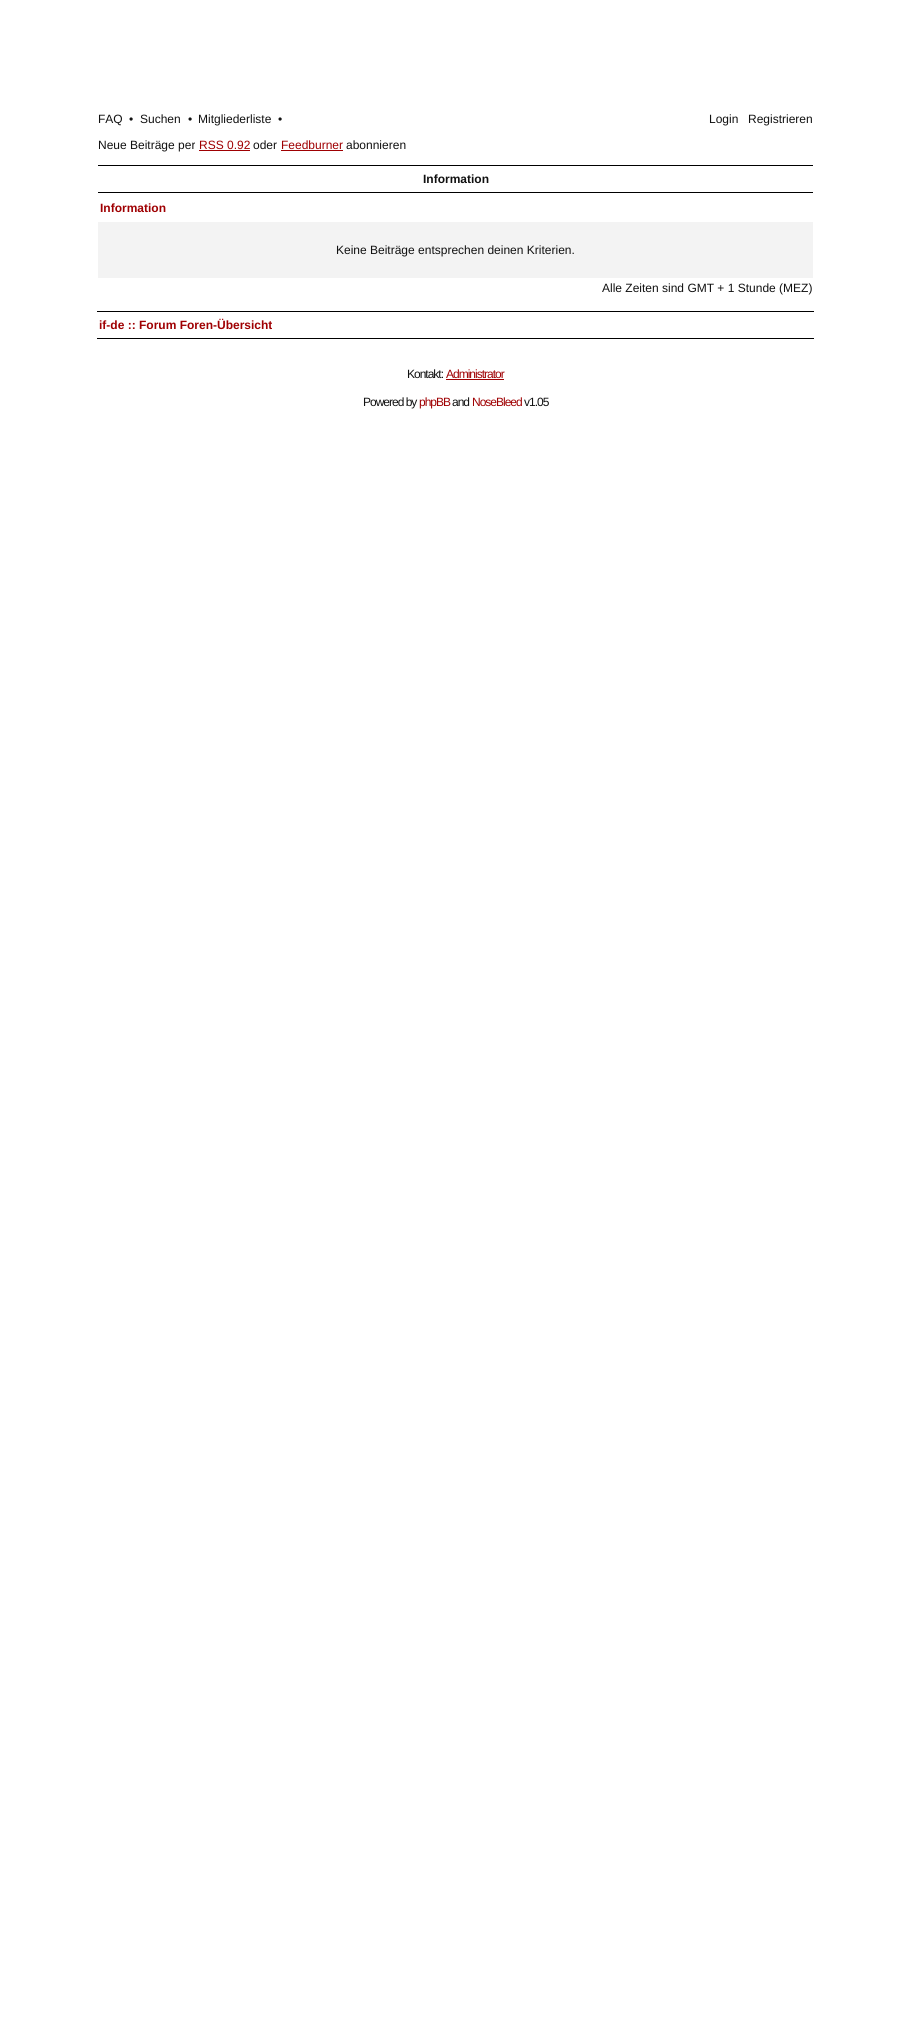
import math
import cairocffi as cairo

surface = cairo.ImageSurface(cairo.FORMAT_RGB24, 911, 2026)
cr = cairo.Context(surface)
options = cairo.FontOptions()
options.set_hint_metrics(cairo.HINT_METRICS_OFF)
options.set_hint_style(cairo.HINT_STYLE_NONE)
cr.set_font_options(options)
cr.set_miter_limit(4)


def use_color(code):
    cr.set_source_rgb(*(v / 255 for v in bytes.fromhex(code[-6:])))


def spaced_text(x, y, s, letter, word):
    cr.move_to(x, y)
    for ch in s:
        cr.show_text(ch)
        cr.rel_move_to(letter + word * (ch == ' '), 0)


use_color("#ffffff")
cr.paint()
cr.select_font_face("Liberation Sans")
cr.set_font_size(12)
use_color("#111111")
cr.move_to(98, 123)
cr.show_text("FAQ")
cr.move_to(129, 123)
cr.show_text("•")
cr.move_to(140, 123)
cr.show_text("Suchen")
cr.move_to(188, 123)
cr.show_text("•")
cr.move_to(198, 123)
cr.show_text("Mitgliederliste")
cr.move_to(278, 123)
cr.show_text("•")
cr.move_to(709, 123)
cr.show_text("Login")
cr.move_to(748, 123)
cr.show_text("Registrieren")
cr.move_to(98, 149)
cr.show_text("Neue Beiträge per")
use_color("#9f0002")
cr.move_to(199, 149)
cr.show_text("RSS 0.92")
cr.rectangle(199, 150, 51, 1)
cr.fill()
use_color("#111111")
cr.move_to(253, 149)
cr.show_text("oder")
use_color("#9f0002")
cr.move_to(281, 149)
cr.show_text("Feedburner")
cr.rectangle(281, 150, 62, 1)
cr.fill()
use_color("#111111")
cr.move_to(346, 149)
cr.show_text("abonnieren")
use_color("#000000")
cr.rectangle(98, 165, 715, 1)
cr.fill()
cr.rectangle(98, 192, 715, 1)
cr.fill()
cr.select_font_face("Liberation Sans", cairo.FONT_SLANT_NORMAL, cairo.FONT_WEIGHT_BOLD)
use_color("#111111")
cr.move_to(423, 183)
cr.show_text("Information")
use_color("#9f0002")
cr.move_to(100, 212)
cr.show_text("Information")
use_color("#f3f3f3")
cr.rectangle(98, 222, 715, 56)
cr.fill()
cr.select_font_face("Liberation Sans")
use_color("#111111")
cr.move_to(336, 254)
cr.show_text("Keine Beiträge entsprechen deinen Kriterien.")
cr.move_to(602, 292)
cr.show_text("Alle Zeiten sind GMT + 1 Stunde (MEZ)")
use_color("#000000")
cr.rectangle(97, 311, 717, 1)
cr.fill()
cr.rectangle(97, 338, 717, 1)
cr.fill()
cr.select_font_face("Liberation Sans", cairo.FONT_SLANT_NORMAL, cairo.FONT_WEIGHT_BOLD)
use_color("#9f0002")
cr.move_to(99, 329)
cr.show_text("if-de :: Forum Foren-Übersicht")
cr.select_font_face("Liberation Sans")
use_color("#111111")
spaced_text(407, 378, "Kontakt:", -1, 0)
use_color("#9f0002")
spaced_text(446, 378, "Administrator", -1, 0)
cr.rectangle(446, 379, 58, 1)
cr.fill()
use_color("#111111")
spaced_text(363, 406, "Powered by", -1, 0)
use_color("#9f0002")
spaced_text(419, 406, "phpBB", -1, 0)
use_color("#111111")
spaced_text(452, 406, "and", -1, 0)
use_color("#9f0002")
spaced_text(472, 406, "NoseBleed", -1, 0)
use_color("#111111")
spaced_text(524, 406, "v1.05", -1, 0)
surface.write_to_png("result.png")
